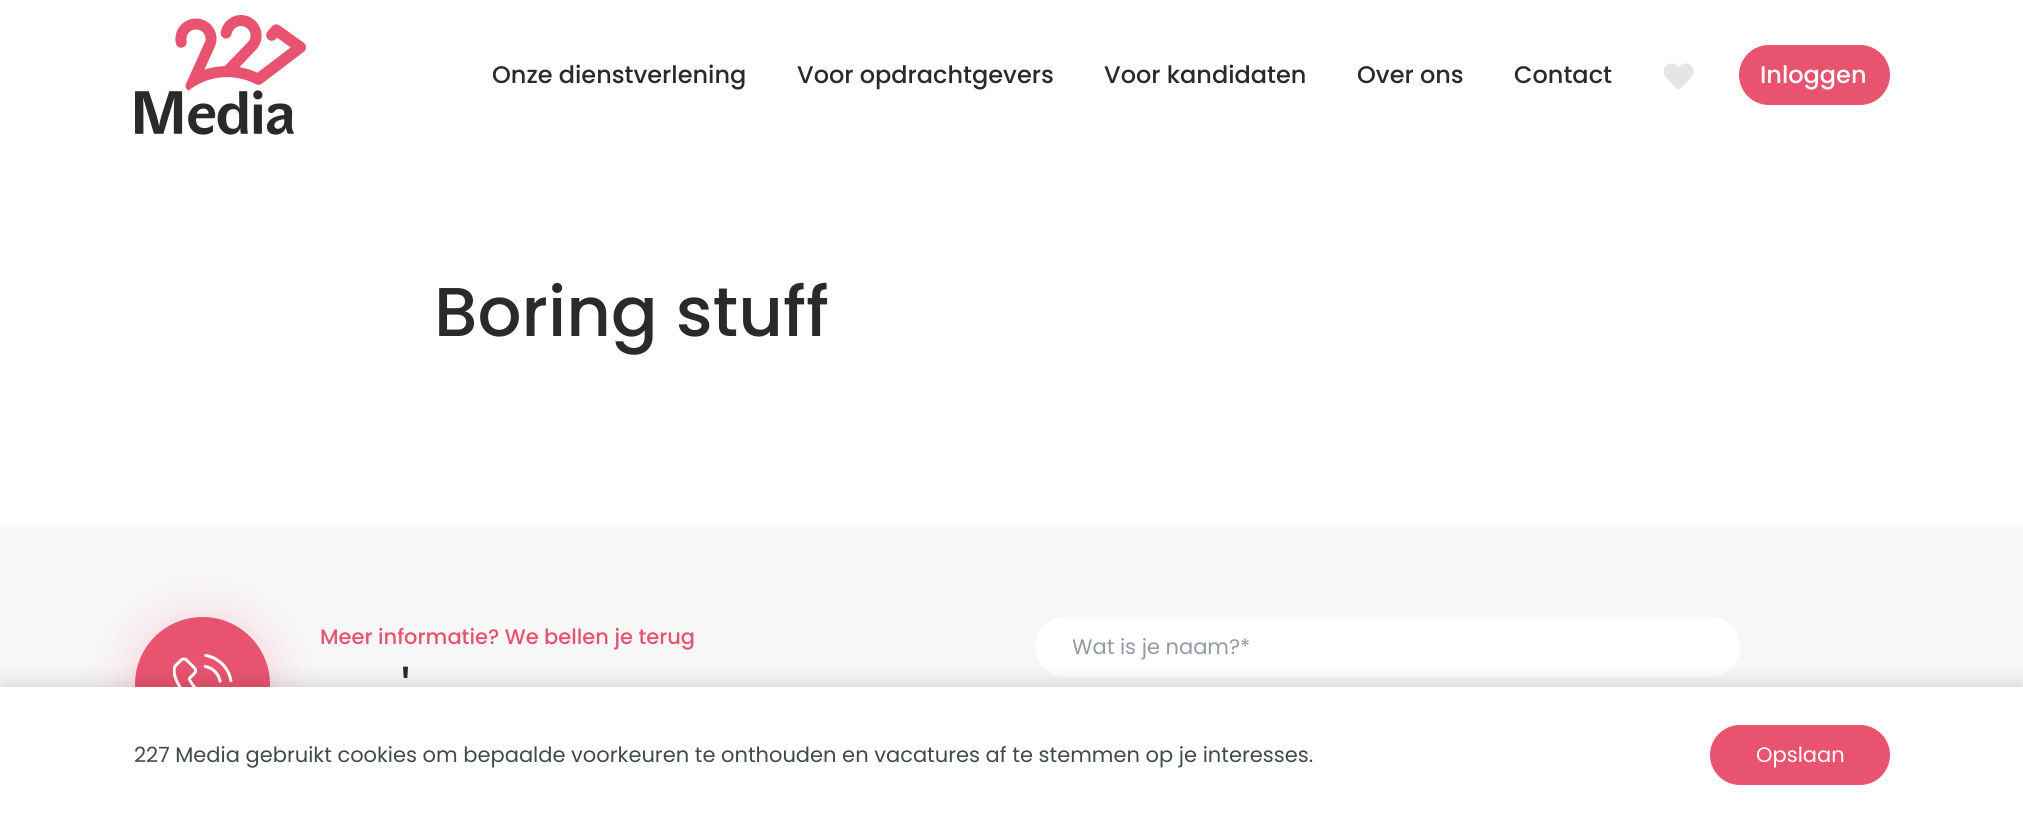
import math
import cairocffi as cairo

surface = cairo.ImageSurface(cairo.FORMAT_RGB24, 2023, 821)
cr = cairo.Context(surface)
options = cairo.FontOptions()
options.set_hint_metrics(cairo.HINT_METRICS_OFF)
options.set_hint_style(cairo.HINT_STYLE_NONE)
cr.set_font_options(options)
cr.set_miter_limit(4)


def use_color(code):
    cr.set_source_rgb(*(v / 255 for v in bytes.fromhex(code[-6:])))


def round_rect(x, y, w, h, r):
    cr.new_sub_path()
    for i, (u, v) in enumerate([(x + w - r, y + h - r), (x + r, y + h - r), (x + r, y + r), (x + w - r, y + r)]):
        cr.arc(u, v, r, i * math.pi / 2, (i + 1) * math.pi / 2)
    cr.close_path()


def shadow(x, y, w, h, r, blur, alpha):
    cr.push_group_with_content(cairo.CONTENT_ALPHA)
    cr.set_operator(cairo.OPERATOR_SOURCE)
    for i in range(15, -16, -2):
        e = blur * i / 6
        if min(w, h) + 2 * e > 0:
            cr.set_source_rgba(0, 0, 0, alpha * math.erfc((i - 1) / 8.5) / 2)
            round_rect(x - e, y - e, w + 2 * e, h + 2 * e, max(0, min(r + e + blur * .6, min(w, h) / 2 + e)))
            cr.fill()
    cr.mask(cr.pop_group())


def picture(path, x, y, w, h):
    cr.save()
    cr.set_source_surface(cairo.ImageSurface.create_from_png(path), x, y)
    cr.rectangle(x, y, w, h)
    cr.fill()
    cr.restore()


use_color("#ffffff")
cr.paint()
picture("img1.png", 135, 15, 171, 120)
cr.select_font_face("Poppins Medium")
cr.set_font_size(24)
use_color("#2a2a29")
cr.move_to(492, 83)
cr.show_text("Onze dienstverlening")
cr.move_to(797, 83)
cr.show_text("Voor opdrachtgevers")
cr.move_to(1104, 83)
cr.show_text("Voor kandidaten")
cr.move_to(1357, 83)
cr.show_text("Over ons")
cr.move_to(1514, 83)
cr.show_text("Contact")
picture("img2.png", 1664, 63, 30, 27)
use_color("#e8546f")
round_rect(1739, 45, 151, 60, 30)
cr.fill()
use_color("#ffffff")
cr.move_to(1760, 83)
cr.show_text("Inloggen")
cr.set_font_size(69)
use_color("#2a2a29")
cr.move_to(434, 336)
cr.show_text("Boring stuff")
use_color("#f7f7f8")
cr.rectangle(0, 527, 2023, 160)
cr.fill()
use_color("#f71245")
shadow(135, 621, 135, 135, 67.5, 22.5, 0.2)
use_color("#e8546f")
cr.arc(202.5, 684.5, 67.5, 0, 2 * math.pi)
cr.fill()
picture("img3.png", 173, 654, 60, 33)
cr.set_font_size(21)
cr.move_to(320, 644)
cr.show_text("Meer informatie? We bellen je terug")
cr.select_font_face("Poppins")
cr.set_font_size(57)
use_color("#2a2a29")
cr.move_to(401, 712)
cr.show_text("'")
use_color("#ffffff")
round_rect(1035, 617, 705, 60, 30)
cr.fill()
cr.save()
cr.rectangle(1073, 632, 630, 31)
cr.clip()
cr.set_font_size(21)
use_color("#939aa2")
cr.move_to(1072, 654)
cr.show_text("Wat is je naam?*")
cr.restore()
use_color("#000000")
shadow(0, 680, 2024, 135, 0, 7.5, 0.1)
use_color("#ffffff")
cr.rectangle(0, 687, 2023, 134)
cr.fill()
cr.set_font_size(21)
use_color("#3f494e")
cr.move_to(134, 762)
cr.show_text("227 Media gebruikt cookies om bepaalde voorkeuren te onthouden en vacatures af te stemmen op je interesses.")
use_color("#e8546f")
round_rect(1710, 725, 180, 60, 30)
cr.fill()
use_color("#ffffff")
cr.move_to(1756, 762)
cr.show_text("Opslaan")
surface.write_to_png("result.png")
